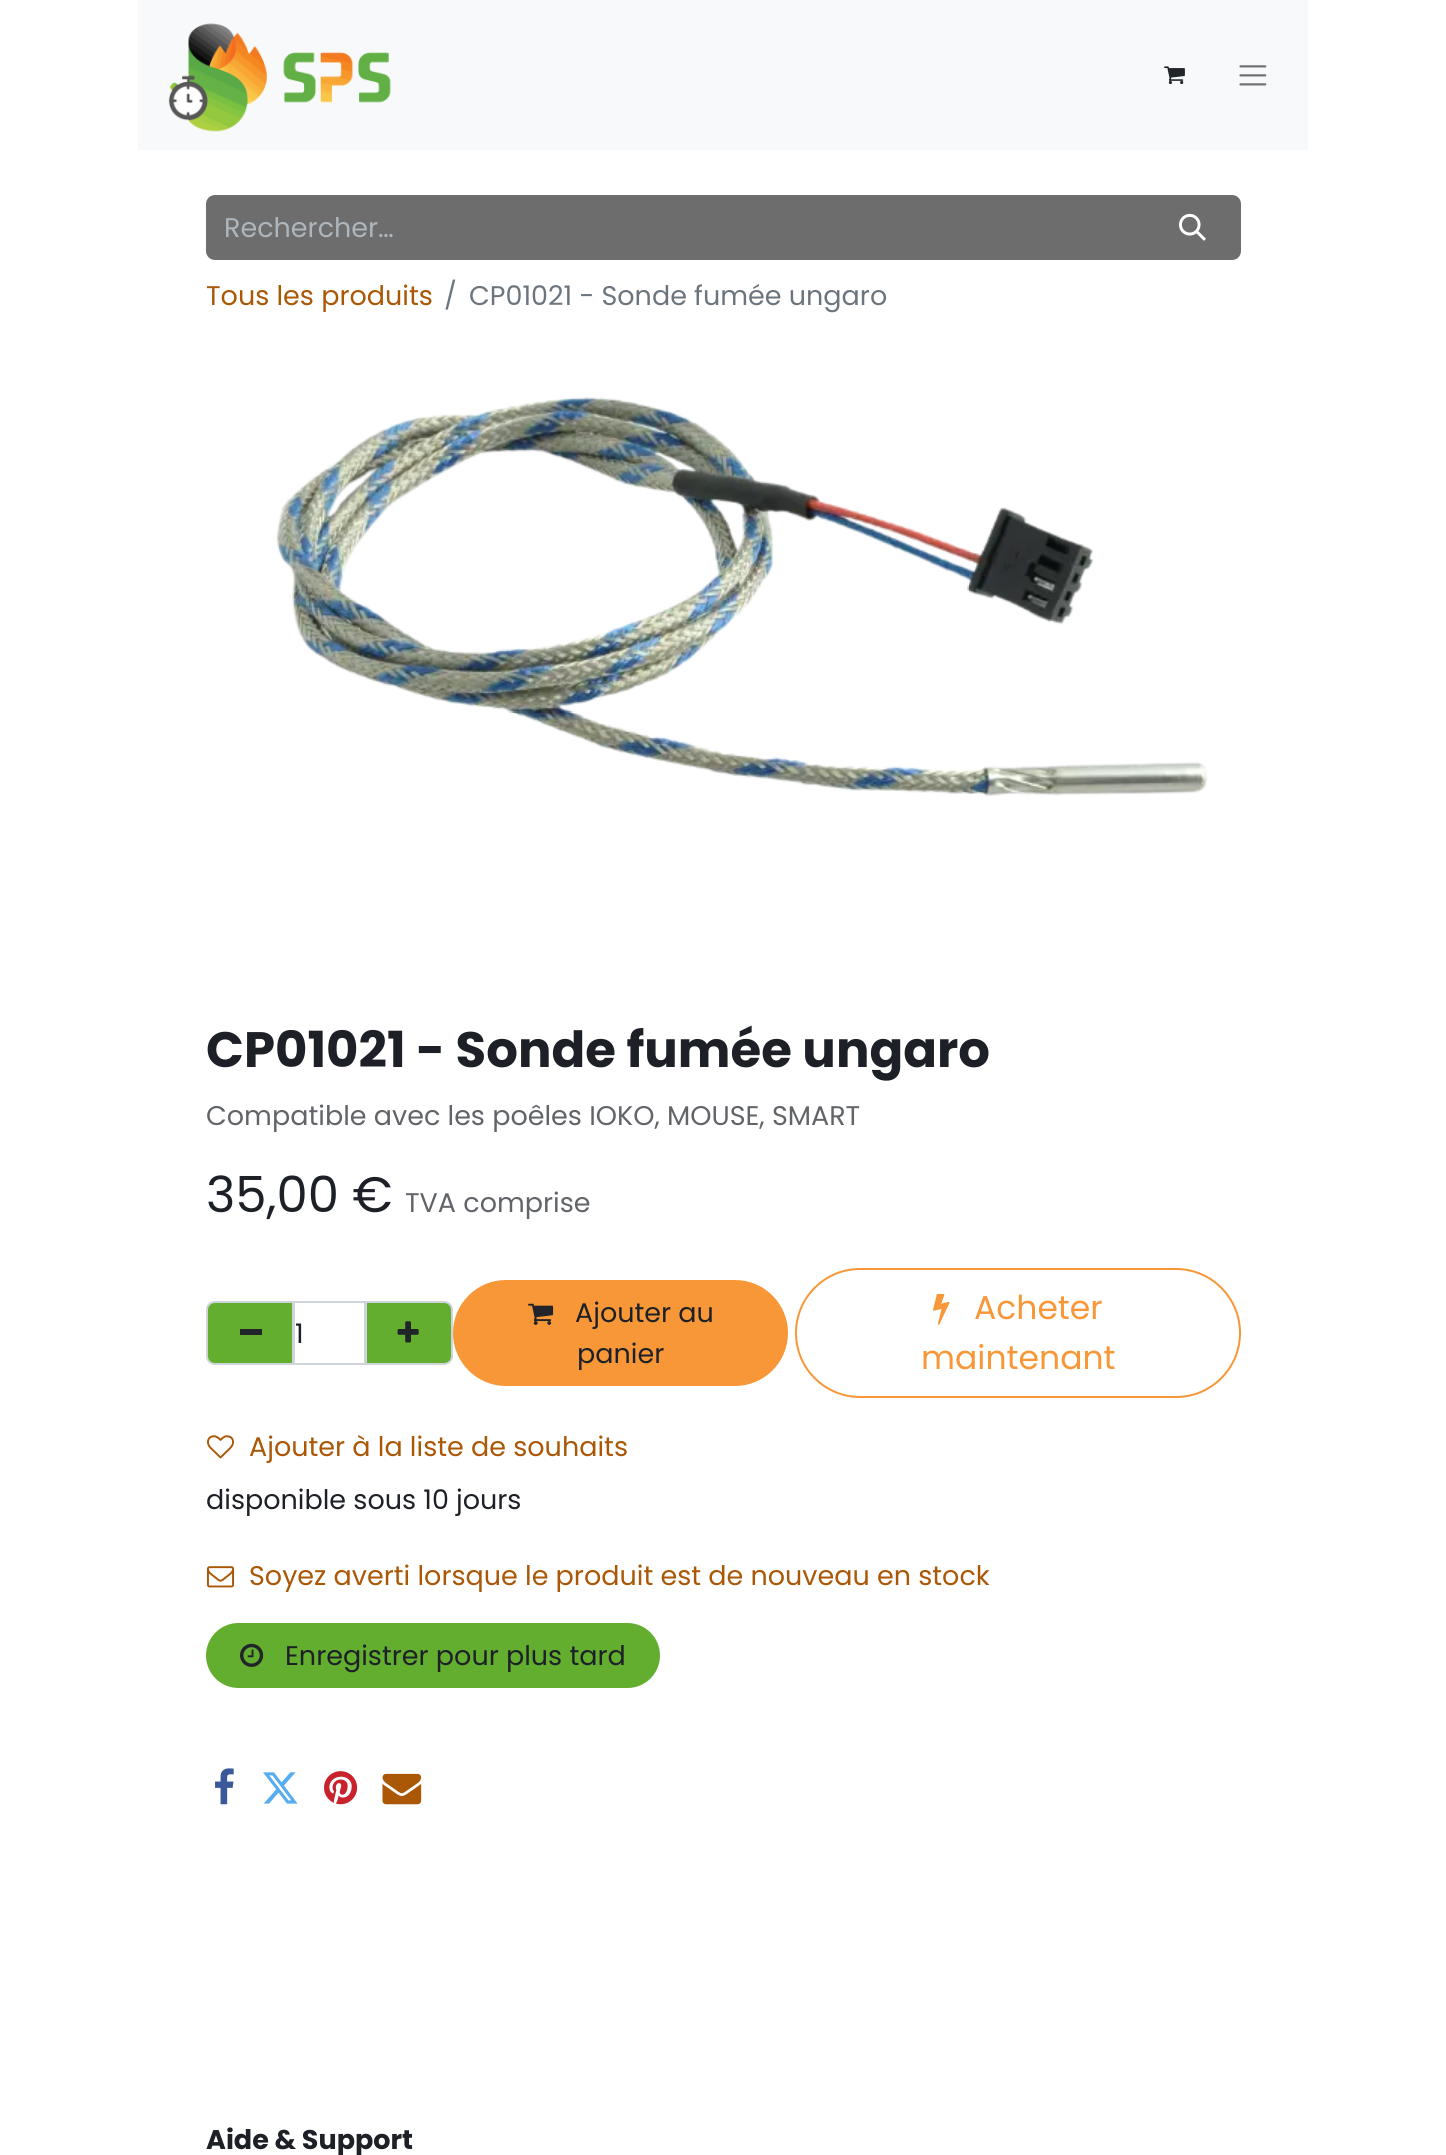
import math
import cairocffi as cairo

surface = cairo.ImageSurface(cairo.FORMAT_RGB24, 1446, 2155)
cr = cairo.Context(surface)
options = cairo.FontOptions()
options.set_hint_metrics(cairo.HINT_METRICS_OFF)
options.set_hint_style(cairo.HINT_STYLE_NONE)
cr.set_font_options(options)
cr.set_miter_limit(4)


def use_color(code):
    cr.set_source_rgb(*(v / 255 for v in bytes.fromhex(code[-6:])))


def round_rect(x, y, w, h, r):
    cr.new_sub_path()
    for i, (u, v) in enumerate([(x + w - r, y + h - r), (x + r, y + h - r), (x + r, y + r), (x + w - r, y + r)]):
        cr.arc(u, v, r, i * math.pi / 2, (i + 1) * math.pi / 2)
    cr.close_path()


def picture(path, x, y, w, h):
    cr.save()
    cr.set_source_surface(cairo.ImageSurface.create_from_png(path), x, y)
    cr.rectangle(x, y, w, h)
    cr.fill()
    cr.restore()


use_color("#ffffff")
cr.paint()
use_color("#f8f9fa")
cr.rectangle(138, 0, 1170, 150)
cr.fill()
picture("img1.png", 168, 23, 223, 109)
picture("img2.png", 1164, 66, 21, 19)
picture("img3.png", 1239, 65, 28, 21)
use_color("#6d6d6d")
cr.new_path()
cr.move_to(215, 195)
cr.line_to(1148, 195)
cr.line_to(1148, 260)
cr.line_to(215, 260)
cr.curve_to(210, 260, 206, 256, 206, 251)
cr.line_to(206, 204)
cr.curve_to(206, 199, 210, 195, 215, 195)
cr.close_path()
cr.fill()
cr.select_font_face("Poppins")
cr.set_font_size(27)
use_color("#adb5bd")
cr.move_to(224, 237)
cr.show_text("Rechercher…")
use_color("#6d6d6d")
cr.new_path()
cr.move_to(1147, 196)
cr.line_to(1232, 196)
cr.curve_to(1236.5, 196, 1240, 199.5, 1240, 204)
cr.line_to(1240, 251)
cr.curve_to(1240, 255.5, 1236.5, 259, 1232, 259)
cr.line_to(1147, 259)
cr.close_path()
cr.fill_preserve()
cr.stroke()
picture("img4.png", 1179, 213, 27, 28)
use_color("#aa5706")
cr.move_to(206, 305)
cr.show_text("Tous les produits")
use_color("#6c757d")
cr.move_to(444, 305)
cr.show_text("/")
cr.move_to(469, 305)
cr.show_text("CP01021 - Sonde fumée ungaro")
picture("img5.png", 276, 397, 932, 400)
cr.select_font_face("Poppins", cairo.FONT_SLANT_NORMAL, cairo.FONT_WEIGHT_BOLD)
cr.set_font_size(49.75)
use_color("#1d2127")
cr.move_to(206, 1067)
cr.show_text("CP01021 - Sonde fumée ungaro")
cr.select_font_face("Poppins")
cr.set_font_size(27)
use_color("#616468")
cr.move_to(206, 1125)
cr.show_text("Compatible avec les poêles IOKO, MOUSE, SMART")
cr.set_font_size(49.75)
use_color("#1d2127")
cr.move_to(206, 1212)
cr.show_text("35,00 €")
cr.set_font_size(27)
use_color("#616468")
cr.move_to(405, 1212)
cr.show_text("TVA comprise")
cr.rectangle(294, 1302, 71, 62)
use_color("#ced4da")
cr.stroke()
use_color("#63ad2f")
cr.new_path()
cr.move_to(215, 1302)
cr.line_to(293, 1302)
cr.line_to(293, 1364)
cr.line_to(215, 1364)
cr.curve_to(210.5, 1364, 207, 1360.5, 207, 1356)
cr.line_to(207, 1310)
cr.curve_to(207, 1305.5, 210.5, 1302, 215, 1302)
cr.close_path()
cr.fill_preserve()
use_color("#ced4da")
cr.stroke()
use_color("#212529")
cr.rectangle(240, 1329, 22, 6)
cr.fill()
use_color("#1d2127")
cr.move_to(295, 1343)
cr.show_text("1")
use_color("#63ad2f")
cr.new_path()
cr.move_to(366, 1302)
cr.line_to(444, 1302)
cr.curve_to(448.5, 1302, 452, 1305.5, 452, 1310)
cr.line_to(452, 1356)
cr.curve_to(452, 1360.5, 448.5, 1364, 444, 1364)
cr.line_to(366, 1364)
cr.close_path()
cr.fill_preserve()
use_color("#ced4da")
cr.stroke()
picture("img6.png", 397, 1321, 22, 22)
use_color("#f89737")
round_rect(454, 1281, 333, 104, 52)
cr.fill_preserve()
cr.stroke()
picture("img7.png", 528, 1303, 26, 22)
use_color("#1d2127")
cr.move_to(575, 1322)
cr.show_text("Ajouter au")
cr.move_to(577, 1363)
cr.show_text("panier")
round_rect(796, 1269, 444, 128, 64)
use_color("#f89737")
cr.stroke()
picture("img8.png", 933, 1294, 17, 31)
cr.set_font_size(33)
cr.move_to(974, 1319)
cr.show_text("Acheter")
cr.move_to(921, 1369)
cr.show_text("maintenant")
picture("img9.png", 207, 1435, 27, 24)
cr.set_font_size(27)
use_color("#aa5706")
cr.move_to(249, 1456)
cr.show_text("Ajouter à la liste de souhaits")
use_color("#1d2127")
cr.move_to(206, 1509)
cr.show_text("disponible sous 10 jours")
picture("img10.png", 207, 1566, 27, 22)
use_color("#aa5706")
cr.move_to(249, 1585)
cr.show_text("Soyez averti lorsque le produit est de nouveau en stock")
use_color("#63ad2f")
round_rect(207, 1624, 452, 63, 31.5)
cr.fill_preserve()
cr.stroke()
picture("img11.png", 240, 1643, 24, 24)
use_color("#1d2127")
cr.move_to(285, 1665)
cr.show_text("Enregistrer pour plus tard")
picture("img12.png", 215, 1768, 19, 37)
picture("img13.png", 263, 1772, 35, 32)
picture("img14.png", 324, 1771, 34, 34)
picture("img15.png", 382, 1773, 40, 32)
cr.select_font_face("Poppins", cairo.FONT_SLANT_NORMAL, cairo.FONT_WEIGHT_BOLD)
cr.move_to(206, 2149)
cr.show_text("Aide & Support")
surface.write_to_png("result.png")
